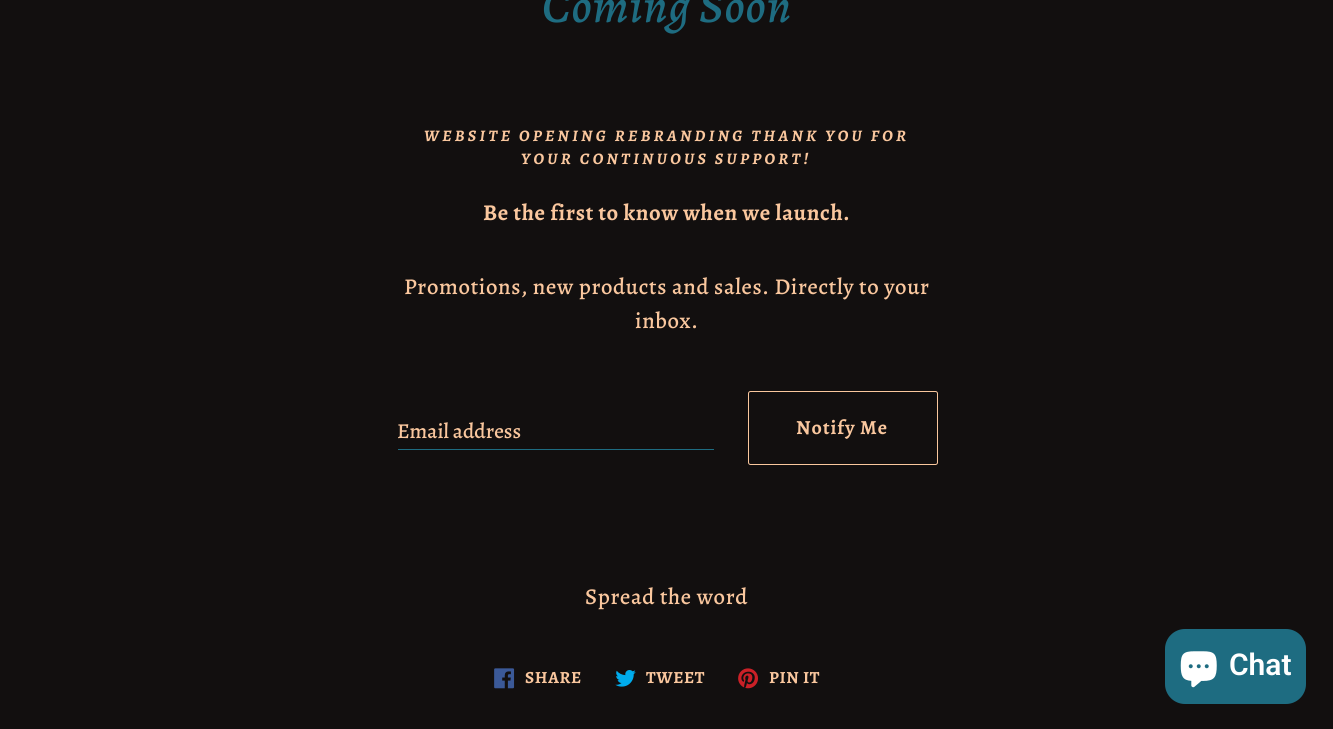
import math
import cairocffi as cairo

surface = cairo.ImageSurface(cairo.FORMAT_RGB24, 1333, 729)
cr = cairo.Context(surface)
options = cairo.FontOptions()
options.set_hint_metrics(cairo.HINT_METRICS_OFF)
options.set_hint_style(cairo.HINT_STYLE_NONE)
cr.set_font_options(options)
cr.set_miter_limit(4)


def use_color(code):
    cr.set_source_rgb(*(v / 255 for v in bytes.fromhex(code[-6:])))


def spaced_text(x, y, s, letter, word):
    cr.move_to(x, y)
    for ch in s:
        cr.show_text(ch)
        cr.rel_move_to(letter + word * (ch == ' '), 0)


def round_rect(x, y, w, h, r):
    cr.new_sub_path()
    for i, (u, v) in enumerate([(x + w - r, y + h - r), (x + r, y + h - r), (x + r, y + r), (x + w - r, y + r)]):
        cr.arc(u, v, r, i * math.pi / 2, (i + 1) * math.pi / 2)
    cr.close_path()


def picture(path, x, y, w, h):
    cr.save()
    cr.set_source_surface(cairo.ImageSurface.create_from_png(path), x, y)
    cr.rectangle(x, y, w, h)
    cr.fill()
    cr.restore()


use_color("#120f0f")
cr.paint()
cr.select_font_face("Alegreya Medium", cairo.FONT_SLANT_ITALIC)
cr.set_font_size(48.25)
use_color("#1e6c81")
spaced_text(542, 22, "Coming Soon", 0.65, 0)
cr.select_font_face("Alegreya", cairo.FONT_SLANT_ITALIC, cairo.FONT_WEIGHT_BOLD)
cr.set_font_size(16.1)
use_color("#fac79e")
spaced_text(424, 141, "WEBSITE OPENING REBRANDING THANK YOU FOR", 3.3, 0)
spaced_text(521, 164, "YOUR CONTINUOUS SUPPORT!", 3.3, 0)
cr.select_font_face("Alegreya", cairo.FONT_SLANT_NORMAL, cairo.FONT_WEIGHT_BOLD)
cr.set_font_size(22.6)
spaced_text(483, 220, "Be the first to know when we launch.", 0.65, 0)
cr.select_font_face("Alegreya Medium")
spaced_text(404, 294, "Promotions, new products and sales. Directly to your", 0.65, 0)
spaced_text(635, 328, "inbox.", 0.65, 0)
cr.set_font_size(21.25)
cr.move_to(397, 438)
cr.show_text("Email address")
use_color("#1e6c81")
cr.rectangle(398, 449, 316, 1)
cr.fill()
round_rect(748.5, 391.5, 189, 73, 2)
use_color("#fac79e")
cr.set_line_width(1)
cr.stroke()
cr.select_font_face("Alegreya", cairo.FONT_SLANT_NORMAL, cairo.FONT_WEIGHT_BOLD)
cr.set_font_size(20)
spaced_text(796, 434, "Notify Me", 1, 0)
cr.select_font_face("Alegreya Medium")
cr.set_font_size(22.6)
spaced_text(585, 604, "Spread the word", 0.65, 0)
picture("img1.png", 494, 668, 21, 21)
cr.select_font_face("Alegreya", cairo.FONT_SLANT_NORMAL, cairo.FONT_WEIGHT_BOLD)
cr.set_font_size(17)
spaced_text(525, 683, "SHARE", 0.65, 0)
picture("img2.png", 615, 670, 21, 17)
spaced_text(646, 683, "TWEET", 0.65, 0)
picture("img3.png", 738, 668, 20, 21)
spaced_text(769, 683, "PIN IT", 0.65, 0)
use_color("#1e6c81")
round_rect(1165, 629, 141, 75, 20)
cr.fill()
picture("img4.png", 1180, 651, 37, 37)
cr.select_font_face("Roboto SemiBold")
cr.set_font_size(30)
use_color("#ffffff")
cr.move_to(1229, 675)
cr.show_text("Chat")
surface.write_to_png("result.png")
